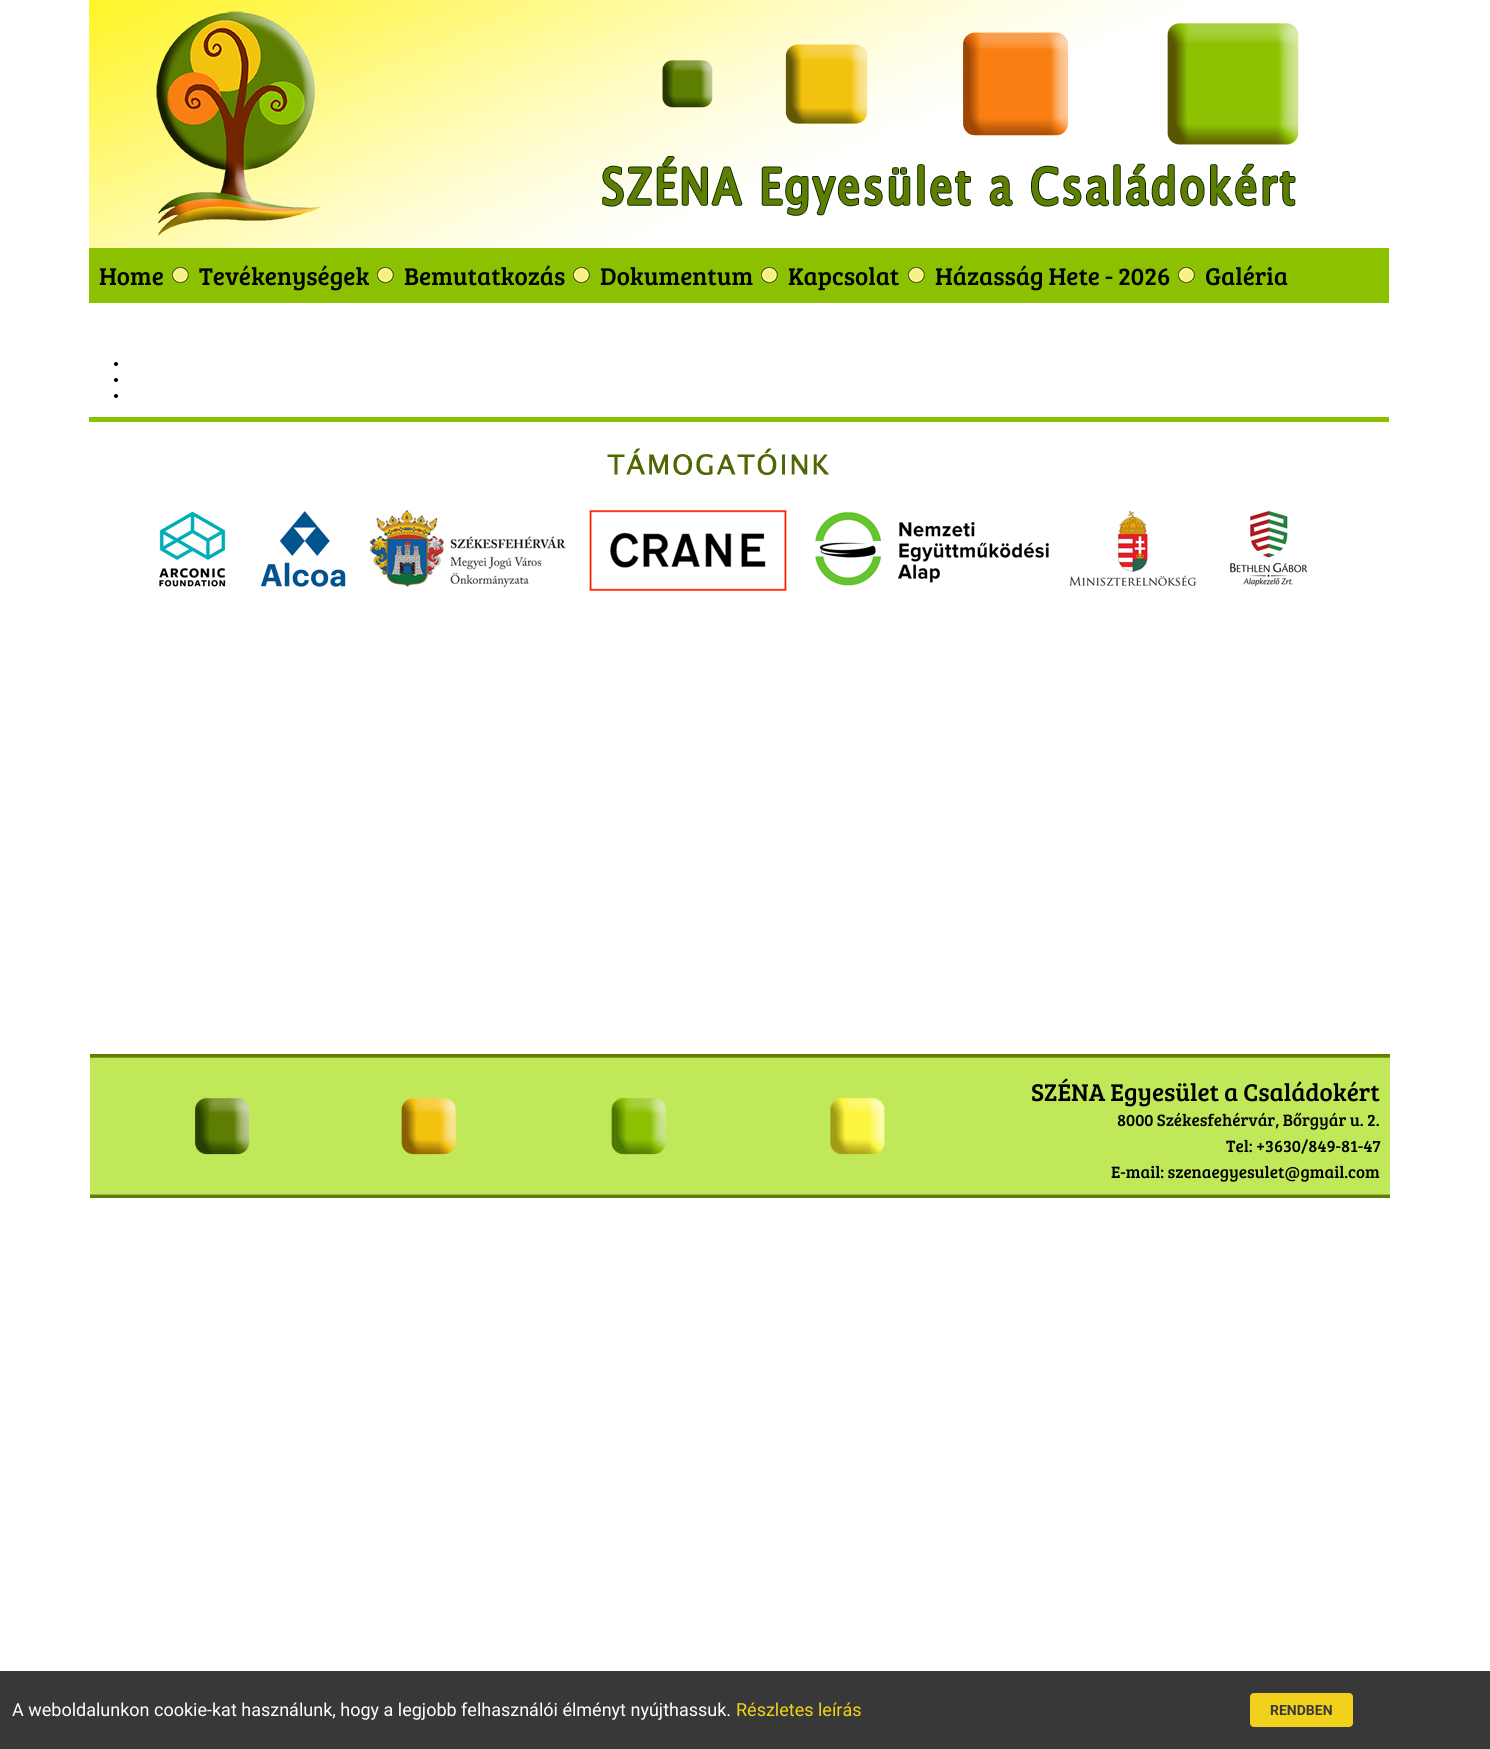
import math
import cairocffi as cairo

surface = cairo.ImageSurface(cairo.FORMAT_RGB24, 1490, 1749)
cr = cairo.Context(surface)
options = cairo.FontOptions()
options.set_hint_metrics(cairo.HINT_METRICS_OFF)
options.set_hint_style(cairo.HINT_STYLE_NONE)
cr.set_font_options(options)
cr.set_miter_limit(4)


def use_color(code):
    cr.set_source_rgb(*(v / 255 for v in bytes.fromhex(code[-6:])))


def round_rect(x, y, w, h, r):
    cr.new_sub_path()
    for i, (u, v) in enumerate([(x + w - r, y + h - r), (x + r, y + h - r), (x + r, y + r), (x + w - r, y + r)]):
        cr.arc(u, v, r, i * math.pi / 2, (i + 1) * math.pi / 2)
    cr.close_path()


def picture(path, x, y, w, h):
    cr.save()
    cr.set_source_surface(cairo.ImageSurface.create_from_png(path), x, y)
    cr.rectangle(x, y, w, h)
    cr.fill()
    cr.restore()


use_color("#ffffff")
cr.paint()
picture("img1.png", 89, 0, 1210, 248)
use_color("#8cc101")
cr.rectangle(89, 248, 1300, 55)
cr.fill()
picture("img2.png", 172, 265, 17, 20)
cr.select_font_face("Bree Serif")
cr.set_font_size(25)
use_color("#000000")
cr.move_to(99, 285)
cr.show_text("Home")
picture("img2.png", 377, 265, 17, 20)
cr.move_to(199, 285)
cr.show_text("Tevékenységek")
picture("img2.png", 573, 265, 17, 20)
cr.move_to(404, 285)
cr.show_text("Bemutatkozás")
picture("img2.png", 761, 265, 17, 20)
cr.move_to(600, 285)
cr.show_text("Dokumentum")
picture("img2.png", 908, 265, 17, 20)
cr.move_to(788, 285)
cr.show_text("Kapcsolat")
picture("img2.png", 1178, 265, 17, 20)
cr.move_to(935, 285)
cr.show_text("Házasság Hete - 2026")
cr.move_to(1205, 285)
cr.show_text("Galéria")
cr.new_path()
cr.arc(116, 364, 2, 0, 2 * math.pi)
cr.fill()
cr.arc(116, 380, 2, 0, 2 * math.pi)
cr.fill()
cr.arc(116, 396, 2, 0, 2 * math.pi)
cr.fill()
use_color("#8cc101")
cr.rectangle(89, 417, 1300, 5)
cr.fill()
picture("img3.png", 159, 448, 1149, 143)
picture("img4.png", 90, 1054, 1300, 144)
use_color("#000000")
cr.move_to(1031, 1101)
cr.show_text("SZÉNA Egyesület a Családokért")
cr.set_font_size(17)
cr.move_to(1117, 1126)
cr.show_text("8000 Székesfehérvár, Bőrgyár u. 2.")
cr.move_to(1226, 1152)
cr.show_text("Tel: +3630/849-81-47")
cr.move_to(1111, 1178)
cr.show_text("E-mail: szenaegyesulet@gmail.com")
use_color("#383838")
cr.rectangle(0, 1671, 1490, 78)
cr.fill()
cr.select_font_face("Roboto")
cr.set_font_size(18)
use_color("#ffffff")
cr.move_to(12, 1716)
cr.show_text("A weboldalunkon cookie-kat használunk, hogy a legjobb felhasználói élményt nyújthassuk.")
use_color("#f2d11c")
cr.move_to(736, 1716)
cr.show_text("Részletes leírás")
round_rect(1250, 1693, 103, 34, 4)
cr.fill()
cr.select_font_face("Roboto", cairo.FONT_SLANT_NORMAL, cairo.FONT_WEIGHT_BOLD)
cr.set_font_size(14)
use_color("#383838")
cr.move_to(1270, 1715)
cr.show_text("RENDBEN")
surface.write_to_png("result.png")
